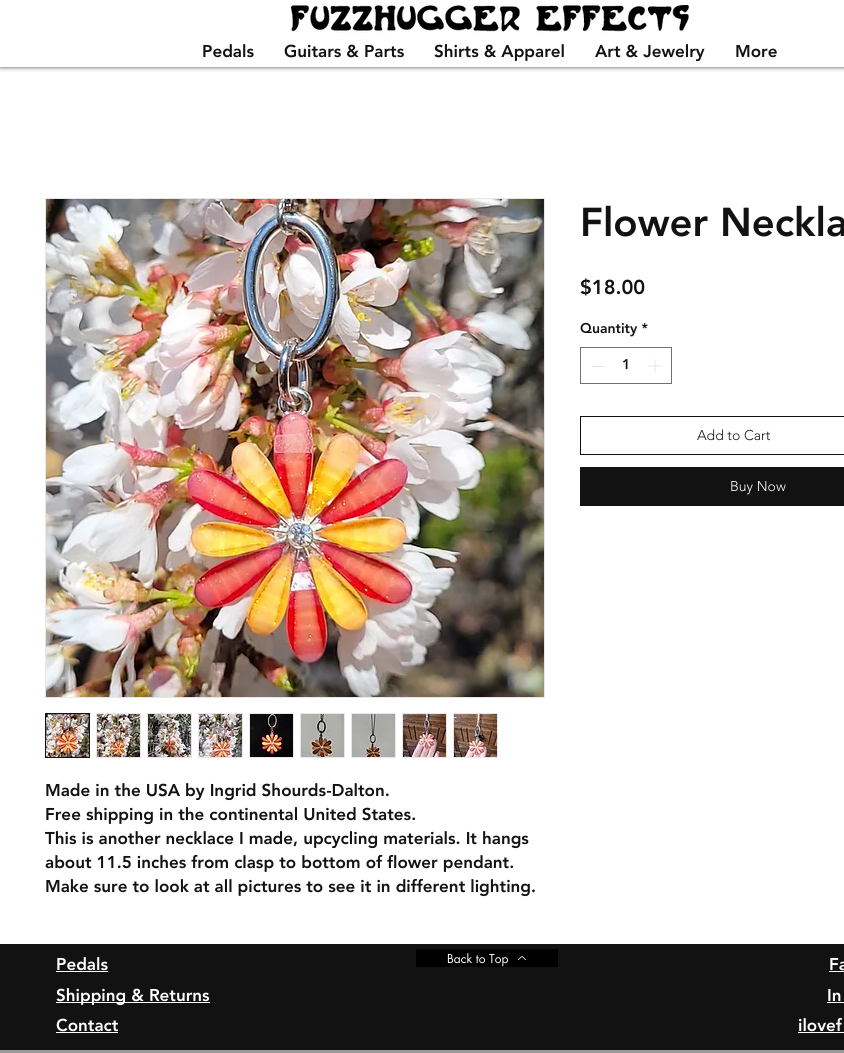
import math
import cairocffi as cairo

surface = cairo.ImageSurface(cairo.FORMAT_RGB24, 844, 1053)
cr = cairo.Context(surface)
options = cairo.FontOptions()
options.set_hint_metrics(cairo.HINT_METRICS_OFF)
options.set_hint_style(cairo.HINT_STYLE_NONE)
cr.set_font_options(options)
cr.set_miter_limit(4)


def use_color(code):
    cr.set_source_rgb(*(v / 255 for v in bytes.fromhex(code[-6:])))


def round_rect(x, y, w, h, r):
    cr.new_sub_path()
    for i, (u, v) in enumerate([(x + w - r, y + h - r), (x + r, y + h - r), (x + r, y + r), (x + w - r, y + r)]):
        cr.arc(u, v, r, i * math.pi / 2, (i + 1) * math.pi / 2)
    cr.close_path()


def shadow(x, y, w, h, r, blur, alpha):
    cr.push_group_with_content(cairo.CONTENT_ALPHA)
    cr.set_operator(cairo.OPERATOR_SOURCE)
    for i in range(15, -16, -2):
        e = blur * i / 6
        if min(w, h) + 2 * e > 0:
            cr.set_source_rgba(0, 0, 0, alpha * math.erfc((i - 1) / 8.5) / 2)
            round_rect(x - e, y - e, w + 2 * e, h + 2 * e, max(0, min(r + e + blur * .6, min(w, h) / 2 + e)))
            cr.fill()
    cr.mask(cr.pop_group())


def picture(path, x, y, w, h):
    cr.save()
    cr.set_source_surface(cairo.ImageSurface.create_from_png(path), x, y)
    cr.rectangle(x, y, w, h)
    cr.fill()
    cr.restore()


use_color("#ffffff")
cr.paint()
cr.save()
cr.rectangle(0, 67, 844, 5)
cr.clip()
use_color("#000000")
shadow(0, 0, 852, 67, 0, 2.5, 0.7)
cr.restore()
picture("img1.png", 291, 5, 398, 28)
cr.select_font_face("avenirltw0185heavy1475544 Black")
cr.set_font_size(17)
use_color("#121212")
cr.move_to(202, 57)
cr.show_text("Pedals")
cr.move_to(284, 57)
cr.show_text("Guitars & Parts")
cr.move_to(434, 57)
cr.show_text("Shirts & Apparel")
cr.move_to(595, 57)
cr.show_text("Art & Jewelry")
cr.move_to(735, 57)
cr.show_text("More")
cr.set_font_size(40)
cr.move_to(580, 236)
cr.show_text("Flower Neckla")
cr.set_font_size(20)
cr.move_to(580, 294)
cr.show_text("$18.00")
cr.set_font_size(14)
cr.move_to(580, 333)
cr.show_text("Quantity *")
cr.rectangle(580.5, 347.5, 91, 36)
use_color("#717171")
cr.set_line_width(1)
cr.stroke()
use_color("#e3e3e3")
cr.rectangle(592, 366, 13, 1)
cr.fill()
use_color("#121212")
cr.move_to(622, 369)
cr.show_text("1")
picture("img2.png", 648, 359, 14, 14)
cr.rectangle(580.5, 416.5, 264, 38)
cr.stroke()
cr.select_font_face("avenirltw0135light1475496 Light")
cr.move_to(697, 440)
cr.show_text("Add to Cart")
cr.rectangle(580, 467, 264, 39)
cr.fill()
use_color("#ffffff")
cr.move_to(730, 491)
cr.show_text("Buy Now")
cr.rectangle(45.5, 198.5, 499, 499)
use_color("#e8e6e6")
cr.stroke()
picture("img3.png", 46, 199, 498, 498)
cr.rectangle(45.5, 713.5, 44, 44)
use_color("#121212")
cr.stroke()
picture("img4.png", 46, 714, 43, 43)
use_color("#e8e6e6")
cr.rectangle(96, 713, 45, 45)
cr.fill()
picture("img5.png", 97, 714, 43, 43)
cr.rectangle(147, 713, 45, 45)
cr.fill()
picture("img6.png", 148, 714, 43, 43)
cr.rectangle(198, 713, 45, 45)
cr.fill()
picture("img7.png", 199, 714, 43, 43)
cr.rectangle(249, 713, 45, 45)
cr.fill()
picture("img8.png", 250, 714, 43, 43)
cr.rectangle(300, 713, 45, 45)
cr.fill()
picture("img9.png", 301, 714, 43, 43)
cr.rectangle(351, 713, 45, 45)
cr.fill()
picture("img10.png", 352, 714, 43, 43)
cr.rectangle(402, 713, 45, 45)
cr.fill()
picture("img11.png", 403, 714, 43, 43)
cr.rectangle(453, 713, 45, 45)
cr.fill()
picture("img12.png", 454, 714, 43, 43)
cr.select_font_face("avenirltw0185heavy1475544 Black")
cr.set_font_size(17)
use_color("#121212")
cr.move_to(45, 796)
cr.show_text("Made in the USA by Ingrid Shourds-Dalton.")
cr.move_to(45, 820)
cr.show_text("Free shipping in the continental United States.")
cr.move_to(45, 844)
cr.show_text("This is another necklace I made, upcycling materials. It hangs")
cr.move_to(45, 868)
cr.show_text("about 11.5 inches from clasp to bottom of flower pendant.")
cr.move_to(45, 892)
cr.show_text("Make sure to look at all pictures to see it in different lighting.")
cr.rectangle(0, 944, 844, 106)
cr.fill()
use_color("#ffffff")
cr.move_to(56, 970)
cr.show_text("Pedals")
cr.rectangle(56, 971, 52, 1)
cr.fill()
cr.rectangle(56, 1002, 154, 1)
cr.fill()
cr.move_to(56, 1001)
cr.show_text("Shipping & Returns")
cr.move_to(56, 1031)
cr.show_text("Contact")
cr.rectangle(56, 1032, 62, 1)
cr.fill()
use_color("#000000")
cr.rectangle(416, 949, 142, 18)
cr.fill()
cr.select_font_face("futura")
cr.set_font_size(12)
use_color("#ffffff")
cr.move_to(447, 963)
cr.show_text("Back to Top")
picture("img13.png", 518, 956, 8, 5)
cr.select_font_face("avenirltw0185heavy1475544 Black")
cr.set_font_size(17)
cr.move_to(829, 970)
cr.show_text("Fa")
cr.rectangle(829, 971, 15, 1)
cr.fill()
cr.move_to(827, 1001)
cr.show_text("In")
cr.rectangle(827, 1002, 17, 1)
cr.fill()
cr.move_to(798, 1031)
cr.show_text("ilovef")
cr.rectangle(798, 1032, 46, 1)
cr.fill()
use_color("#999997")
cr.rectangle(0, 1050, 844, 3)
cr.fill()
surface.write_to_png("result.png")
